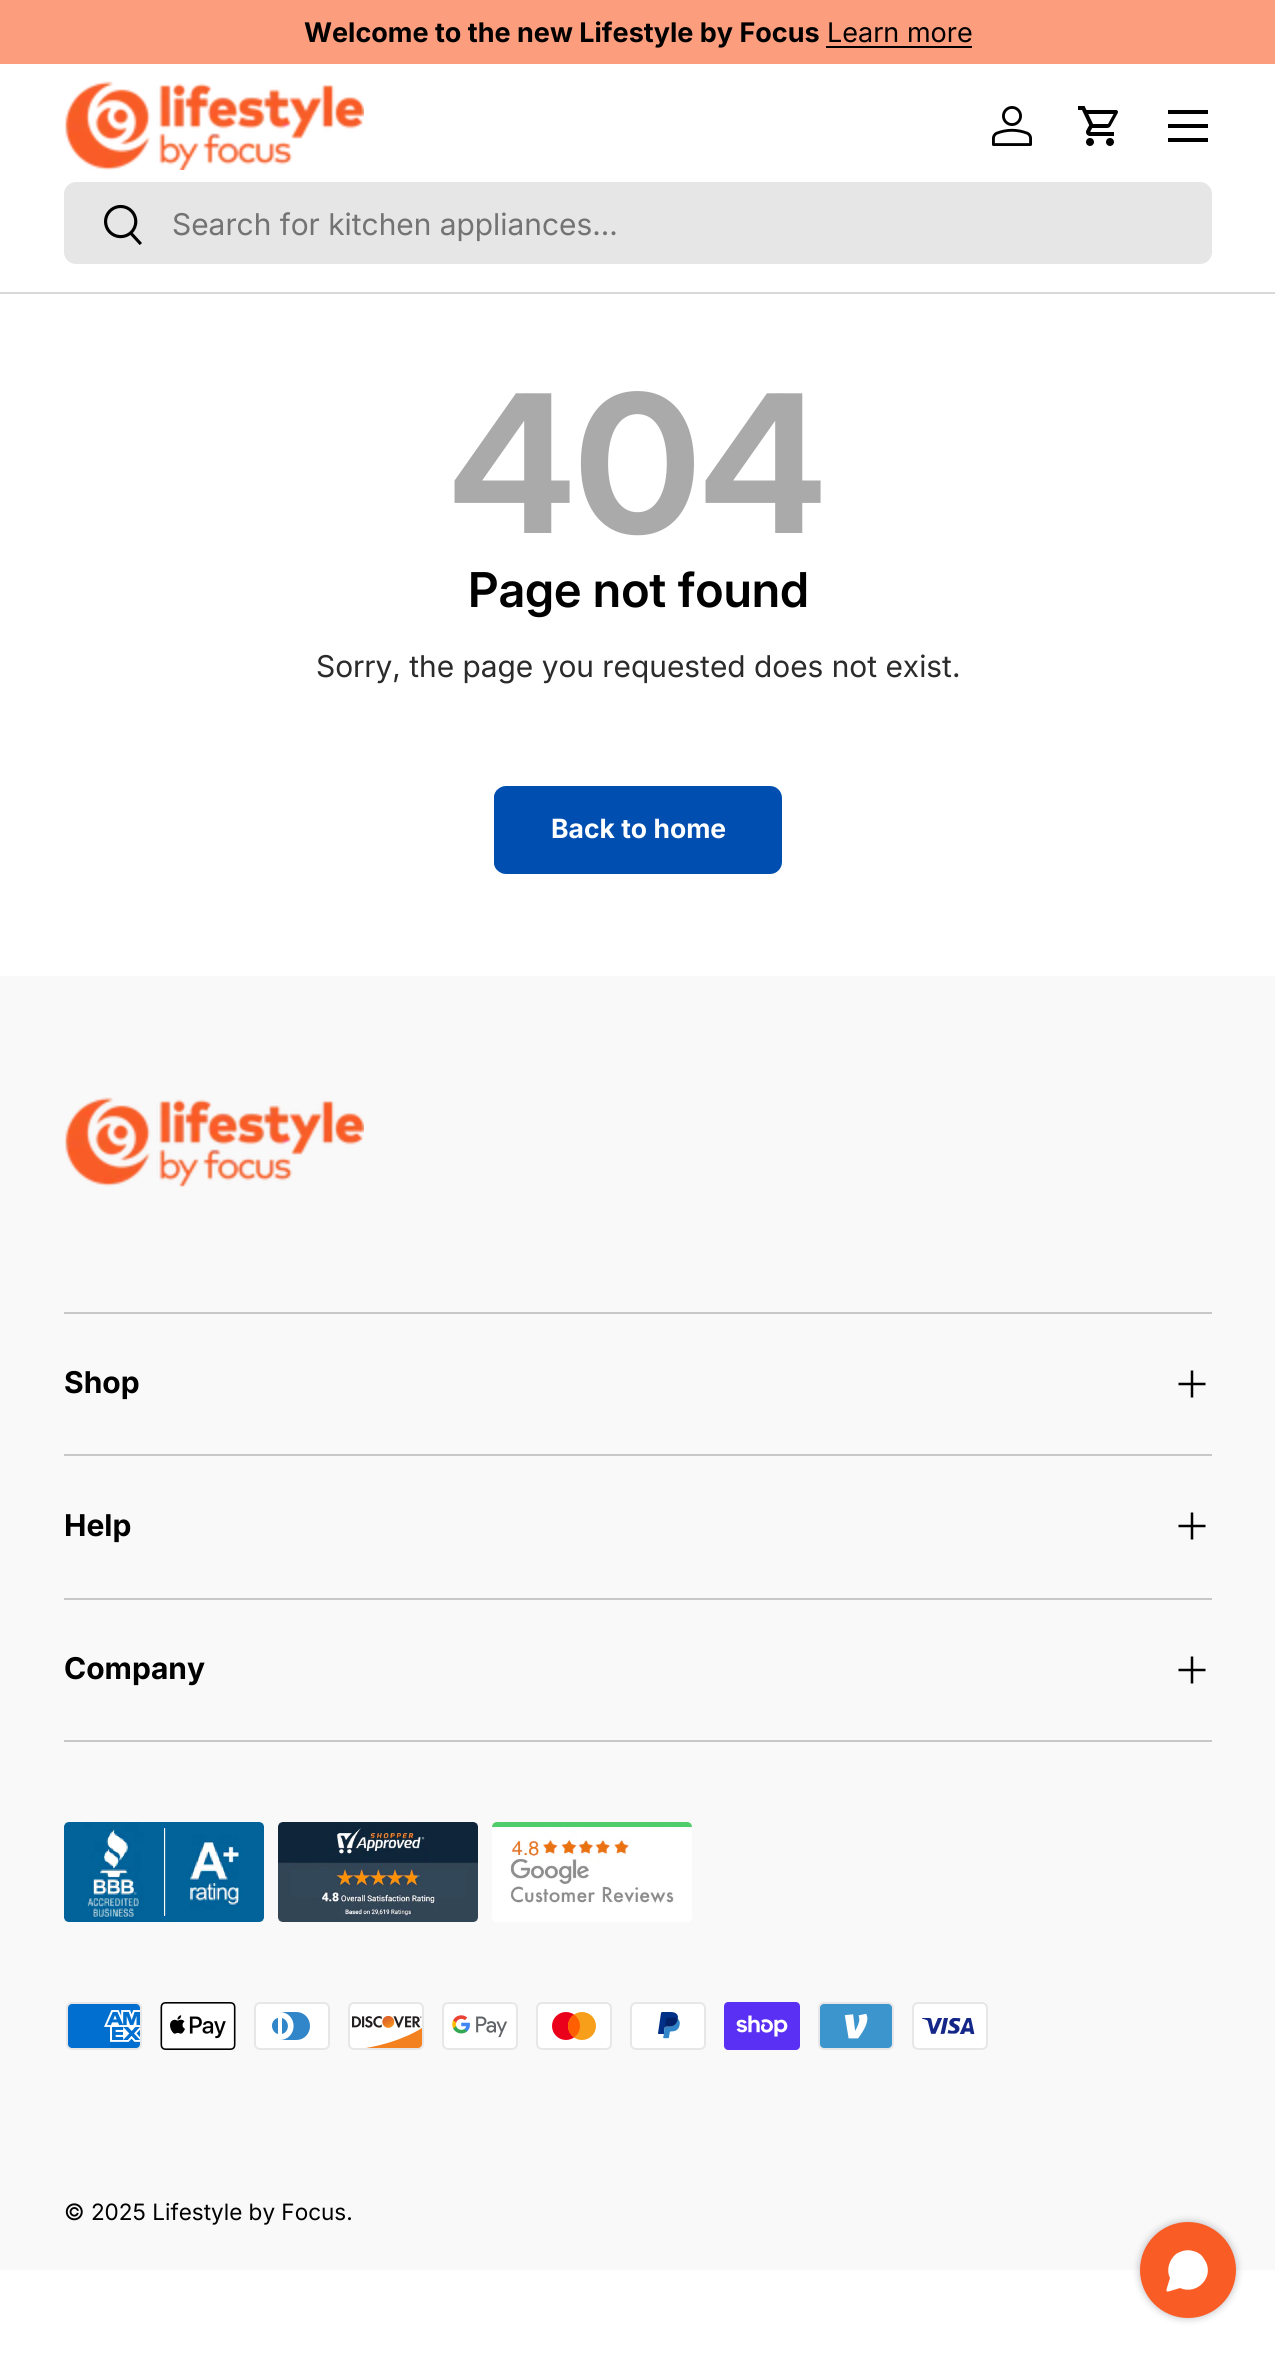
import math
import cairocffi as cairo

surface = cairo.ImageSurface(cairo.FORMAT_RGB24, 1275, 2366)
cr = cairo.Context(surface)
options = cairo.FontOptions()
options.set_hint_metrics(cairo.HINT_METRICS_OFF)
options.set_hint_style(cairo.HINT_STYLE_NONE)
cr.set_font_options(options)
cr.set_miter_limit(4)


def use_color(code):
    cr.set_source_rgb(*(v / 255 for v in bytes.fromhex(code[-6:])))


def round_rect(x, y, w, h, r):
    cr.new_sub_path()
    for i, (u, v) in enumerate([(x + w - r, y + h - r), (x + r, y + h - r), (x + r, y + r), (x + w - r, y + r)]):
        cr.arc(u, v, r, i * math.pi / 2, (i + 1) * math.pi / 2)
    cr.close_path()


def shadow(x, y, w, h, r, blur, alpha):
    cr.push_group_with_content(cairo.CONTENT_ALPHA)
    cr.set_operator(cairo.OPERATOR_SOURCE)
    for i in range(15, -16, -2):
        e = blur * i / 6
        if min(w, h) + 2 * e > 0:
            cr.set_source_rgba(0, 0, 0, alpha * math.erfc((i - 1) / 8.5) / 2)
            round_rect(x - e, y - e, w + 2 * e, h + 2 * e, max(0, min(r + e + blur * .6, min(w, h) / 2 + e)))
            cr.fill()
    cr.mask(cr.pop_group())


def picture(path, x, y, w, h):
    cr.save()
    cr.set_source_surface(cairo.ImageSurface.create_from_png(path), x, y)
    cr.rectangle(x, y, w, h)
    cr.fill()
    cr.restore()


use_color("#ffffff")
cr.paint()
use_color("#fc9d7d")
cr.rectangle(0, 0, 1275, 64)
cr.fill()
cr.select_font_face("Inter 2", cairo.FONT_SLANT_NORMAL, cairo.FONT_WEIGHT_BOLD)
cr.set_font_size(27)
use_color("#000000")
cr.move_to(304, 42)
cr.show_text("Welcome to the new Lifestyle by Focus")
cr.select_font_face("Inter 2")
cr.move_to(827, 42)
cr.show_text("Learn more")
cr.rectangle(826, 46, 146, 2)
cr.fill()
use_color("#d9d9d9")
cr.rectangle(0, 292, 1275, 2)
cr.fill()
picture("img1.png", 64, 81, 300, 89)
picture("img2.png", 992, 106, 40, 40)
picture("img3.png", 1078, 106, 40, 40)
use_color("#000000")
cr.rectangle(1168, 110, 40, 4)
cr.fill()
cr.rectangle(1168, 138, 40, 4)
cr.fill()
cr.rectangle(1168, 124, 40, 4)
cr.fill()
use_color("#e6e6e6")
round_rect(64, 182, 1148, 82, 12)
cr.fill()
picture("img4.png", 104, 204, 38, 41)
cr.select_font_face("Inter")
cr.set_font_size(30)
use_color("#737373")
cr.move_to(172, 235)
cr.show_text("Search for kitchen appliances...")
cr.select_font_face("Inter", cairo.FONT_SLANT_NORMAL, cairo.FONT_WEIGHT_BOLD)
cr.set_font_size(192)
use_color("#aaaaaa")
cr.move_to(449, 533)
cr.show_text("404")
cr.select_font_face("Inter SemiBold")
cr.set_font_size(48)
use_color("#000000")
cr.move_to(468, 607)
cr.show_text("Page not found")
cr.select_font_face("Inter")
cr.set_font_size(30)
use_color("#2a2b2a")
cr.move_to(316, 677)
cr.show_text("Sorry, the page you requested does not exist.")
cr.save()
round_rect(494, 786, 288, 88, 12)
cr.clip()
gradient = cairo.LinearGradient(-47, 729, 763, 931)
gradient.add_color_stop_rgba(0.6, 0.161, 0.439, 0.788, 1)
gradient.add_color_stop_rgba(0.6, 0, 0.31, 0.69, 1)
gradient.add_color_stop_rgba(1, 0, 0.31, 0.69, 1)
cr.set_source(gradient)
cr.rectangle(494, 790, 284, 80)
cr.fill()
cr.restore()
round_rect(496, 788, 284, 84, 10)
use_color("#004fb0")
cr.set_line_width(4)
cr.stroke()
cr.select_font_face("Inter 2", cairo.FONT_SLANT_NORMAL, cairo.FONT_WEIGHT_BOLD)
cr.set_font_size(26.5)
use_color("#ffffff")
cr.move_to(551, 838)
cr.show_text("Back to home")
use_color("#f9f9f9")
cr.rectangle(0, 976, 1275, 1294)
cr.fill()
picture("img5.png", 64, 1097, 300, 90)
use_color("#c7c7c7")
cr.rectangle(64, 1312, 1148, 2)
cr.fill()
cr.rectangle(64, 1454, 1148, 2)
cr.fill()
cr.set_font_size(30)
use_color("#000000")
cr.move_to(64, 1393)
cr.show_text("Shop")
cr.new_path()
cr.move_to(1178.5, 1384)
cr.line_to(1205.5, 1384)
cr.move_to(1192, 1370.5)
cr.line_to(1192, 1397.5)
cr.set_line_width(2.5)
cr.stroke()
use_color("#c7c7c7")
cr.rectangle(64, 1598, 1148, 2)
cr.fill()
use_color("#000000")
cr.move_to(64, 1536)
cr.show_text("Help")
cr.new_path()
cr.move_to(1178.5, 1526)
cr.line_to(1205.5, 1526)
cr.move_to(1192, 1512.5)
cr.line_to(1192, 1539.5)
cr.stroke()
use_color("#c7c7c7")
cr.rectangle(64, 1740, 1148, 2)
cr.fill()
use_color("#000000")
cr.move_to(64, 1679)
cr.show_text("Company")
cr.new_path()
cr.move_to(1178.5, 1670)
cr.line_to(1205.5, 1670)
cr.move_to(1192, 1656.5)
cr.line_to(1192, 1683.5)
cr.stroke()
picture("img6.png", 64, 1822, 200, 100)
picture("img7.png", 278, 1822, 200, 100)
picture("img8.png", 492, 1822, 200, 100)
picture("img9.png", 66, 2002, 76, 48)
picture("img10.png", 160, 2002, 76, 48)
picture("img11.png", 254, 2002, 76, 48)
picture("img12.png", 348, 2002, 76, 48)
picture("img13.png", 442, 2002, 76, 48)
picture("img14.png", 536, 2002, 76, 48)
picture("img15.png", 630, 2002, 76, 48)
picture("img16.png", 724, 2002, 76, 48)
picture("img17.png", 818, 2002, 76, 48)
picture("img18.png", 912, 2002, 76, 48)
cr.select_font_face("Inter 2")
cr.set_font_size(22.5)
cr.move_to(64, 2220)
cr.show_text("© 2025 Lifestyle by Focus.")
use_color("#111326")
shadow(1140, 2222, 96, 96, 48, 4, 0.3)
use_color("#fa5c26")
cr.arc(1188, 2270, 48, 0, 2 * math.pi)
cr.fill()
use_color("#ffffff")
cr.new_path()
cr.move_to(1176, 2254)
cr.curve_to(1181, 2251, 1187, 2249, 1193, 2251)
cr.curve_to(1198, 2252, 1202, 2255, 1204, 2259)
cr.curve_to(1216, 2275, 1198, 2296, 1180, 2288)
cr.curve_to(1163, 2293, 1165, 2295, 1170, 2278)
cr.curve_to(1166, 2270, 1169, 2260, 1176, 2254)
cr.close_path()
cr.fill()
surface.write_to_png("result.png")
